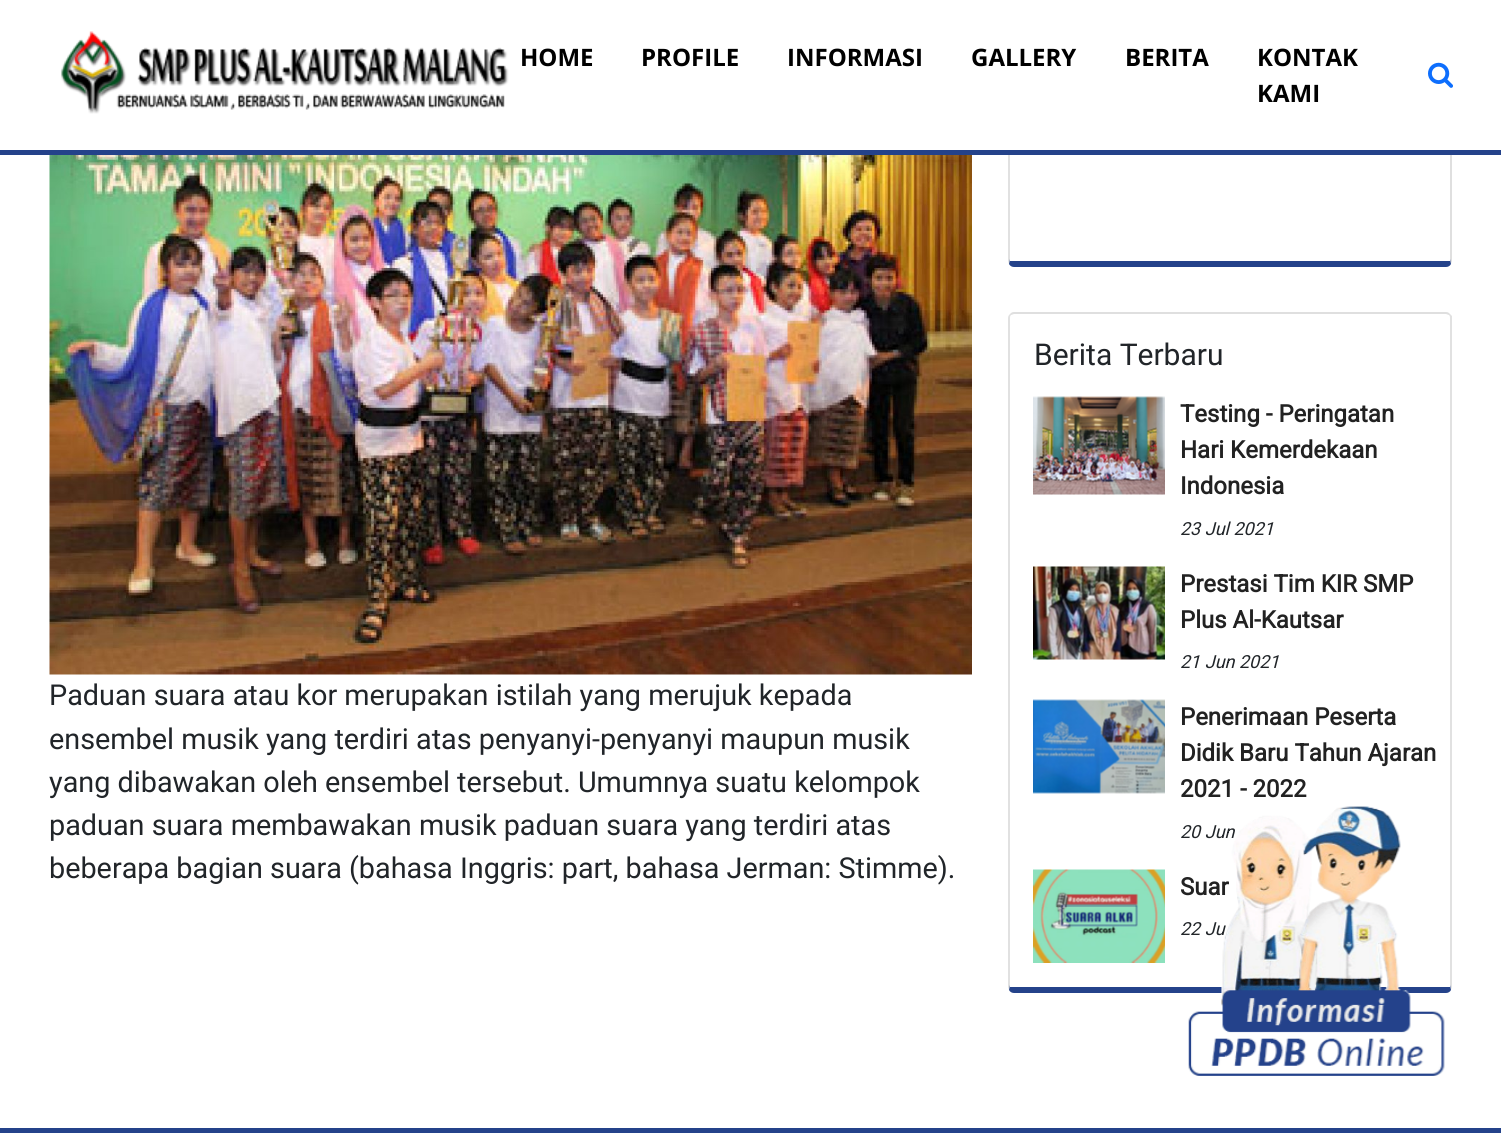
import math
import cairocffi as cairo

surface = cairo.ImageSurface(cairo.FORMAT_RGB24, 1501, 1136)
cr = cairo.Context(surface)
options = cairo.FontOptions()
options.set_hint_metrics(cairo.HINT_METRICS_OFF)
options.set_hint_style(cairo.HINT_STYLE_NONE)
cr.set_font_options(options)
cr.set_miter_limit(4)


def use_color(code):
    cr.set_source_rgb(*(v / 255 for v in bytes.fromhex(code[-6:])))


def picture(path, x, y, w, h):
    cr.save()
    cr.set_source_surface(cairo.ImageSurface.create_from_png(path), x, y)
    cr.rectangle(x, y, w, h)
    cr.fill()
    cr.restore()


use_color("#ffffff")
cr.paint()
use_color("#dfdfdf")
cr.new_path()
cr.move_to(1450, -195)
cr.curve_to(1451, -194, 1452, -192, 1452, -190)
cr.line_to(1452, 261)
cr.line_to(1451, 264)
cr.line_to(1450, 259)
cr.line_to(1450, -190)
cr.curve_to(1450, -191, 1450, -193, 1449, -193)
cr.close_path()
cr.fill()
use_color("#24428a")
cr.new_path()
cr.move_to(1014, 267)
cr.line_to(1446, 267)
cr.curve_to(1448, 267, 1450, 266, 1451, 264)
cr.line_to(1450, 259)
cr.line_to(1450, 261)
cr.line_to(1010, 261)
cr.line_to(1010, 259)
cr.line_to(1009, 264)
cr.curve_to(1010, 266, 1012, 267, 1014, 267)
cr.close_path()
cr.fill()
cr.set_source_rgba(0, 0, 0, 0.12)
cr.new_path()
cr.move_to(1008, -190)
cr.line_to(1008, 261)
cr.line_to(1009, 264)
cr.line_to(1010, 259)
cr.line_to(1010, -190)
cr.curve_to(1010, -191, 1010, -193, 1011, -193)
cr.line_to(1010, -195)
cr.curve_to(1009, -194, 1008, -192, 1008, -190)
cr.close_path()
cr.fill()
use_color("#ffffff")
cr.rectangle(1008, 0, 444, 150)
cr.fill()
use_color("#24428a")
cr.rectangle(0, 150, 1501, 5)
cr.fill()
picture("img1.png", 61, 31, 448, 83)
cr.select_font_face("Open Sans", cairo.FONT_SLANT_NORMAL, cairo.FONT_WEIGHT_BOLD)
cr.set_font_size(24)
use_color("#000000")
cr.move_to(520, 66)
cr.show_text("HOME")
cr.move_to(641, 66)
cr.show_text("PROFILE")
cr.move_to(787, 66)
cr.show_text("INFORMASI")
cr.move_to(971, 66)
cr.show_text("GALLERY")
cr.move_to(1125, 66)
cr.show_text("BERITA")
cr.move_to(1257, 66)
cr.show_text("KONTAK")
cr.move_to(1257, 102)
cr.show_text("KAMI")
picture("img2.png", 1428, 62, 25, 26)
picture("img3.png", 49, 155, 923, 520)
cr.select_font_face("Roboto")
cr.set_font_size(28.8)
use_color("#212529")
cr.move_to(49, 705)
cr.show_text("Paduan suara atau kor merupakan istilah yang merujuk kepada")
cr.move_to(49, 749)
cr.show_text("ensembel musik yang terdiri atas penyanyi-penyanyi maupun musik")
cr.move_to(49, 792)
cr.show_text("yang dibawakan oleh ensembel tersebut. Umumnya suatu kelompok")
cr.move_to(49, 835)
cr.show_text("paduan suara membawakan musik paduan suara yang terdiri atas")
cr.move_to(49, 878)
cr.show_text("beberapa bagian suara (bahasa Inggris: part, bahasa Jerman: Stimme).")
use_color("#dfdfdf")
cr.new_path()
cr.move_to(1014, 312)
cr.curve_to(1012, 312, 1011, 313, 1010, 314)
cr.line_to(1011, 315)
cr.line_to(1014, 314)
cr.line_to(1446, 314)
cr.line_to(1449, 315)
cr.line_to(1450, 314)
cr.curve_to(1449, 313, 1448, 312, 1446, 312)
cr.close_path()
cr.fill()
cr.set_source_rgba(0, 0, 0, 0.12)
cr.new_path()
cr.move_to(1452, 987)
cr.line_to(1452, 316)
cr.line_to(1450, 314)
cr.line_to(1449, 315)
cr.curve_to(1450, 316, 1450, 317, 1450, 318)
cr.line_to(1450, 985)
cr.line_to(1451, 990)
cr.close_path()
cr.fill()
use_color("#24428a")
cr.new_path()
cr.move_to(1014, 993)
cr.line_to(1446, 993)
cr.curve_to(1448, 993, 1450, 992, 1451, 990)
cr.line_to(1450, 985)
cr.line_to(1450, 987)
cr.line_to(1010, 987)
cr.line_to(1010, 985)
cr.line_to(1009, 990)
cr.curve_to(1010, 992, 1012, 993, 1014, 993)
cr.close_path()
cr.fill()
cr.set_source_rgba(0, 0, 0, 0.12)
cr.new_path()
cr.move_to(1008, 318)
cr.line_to(1008, 987)
cr.line_to(1009, 990)
cr.line_to(1010, 985)
cr.line_to(1010, 318)
cr.curve_to(1010, 317, 1010, 316, 1011, 315)
cr.line_to(1010, 314)
cr.curve_to(1009, 315, 1008, 316, 1008, 318)
cr.close_path()
cr.fill()
cr.set_font_size(30)
use_color("#212529")
cr.move_to(1034, 365)
cr.show_text("Berita Terbaru")
picture("img4.png", 1033, 396, 132, 99)
cr.select_font_face("Roboto", cairo.FONT_SLANT_NORMAL, cairo.FONT_WEIGHT_BOLD)
cr.set_font_size(24)
use_color("#222222")
cr.move_to(1180, 422)
cr.show_text("Testing - Peringatan")
cr.move_to(1180, 458)
cr.show_text("Hari Kemerdekaan")
cr.move_to(1180, 494)
cr.show_text("Indonesia")
cr.select_font_face("Roboto", cairo.FONT_SLANT_ITALIC)
cr.set_font_size(18)
use_color("#212529")
cr.move_to(1180, 535)
cr.show_text("23 Jul 2021")
picture("img5.png", 1033, 566, 132, 94)
cr.select_font_face("Roboto", cairo.FONT_SLANT_NORMAL, cairo.FONT_WEIGHT_BOLD)
cr.set_font_size(24)
use_color("#222222")
cr.move_to(1180, 592)
cr.show_text("Prestasi Tim KIR SMP")
cr.move_to(1180, 628)
cr.show_text("Plus Al-Kautsar")
cr.select_font_face("Roboto", cairo.FONT_SLANT_ITALIC)
cr.set_font_size(18)
use_color("#212529")
cr.move_to(1180, 668)
cr.show_text("21 Jun 2021")
picture("img6.png", 1033, 699, 132, 95)
cr.select_font_face("Roboto", cairo.FONT_SLANT_NORMAL, cairo.FONT_WEIGHT_BOLD)
cr.set_font_size(24)
use_color("#222222")
cr.move_to(1180, 725)
cr.show_text("Penerimaan Peserta")
cr.move_to(1180, 761)
cr.show_text("Didik Baru Tahun Ajaran")
cr.move_to(1180, 797)
cr.show_text("2021 - 2022")
cr.select_font_face("Roboto", cairo.FONT_SLANT_ITALIC)
cr.set_font_size(18)
use_color("#212529")
cr.move_to(1180, 838)
cr.show_text("20 Jun")
picture("img7.png", 1033, 869, 132, 94)
cr.select_font_face("Roboto", cairo.FONT_SLANT_NORMAL, cairo.FONT_WEIGHT_BOLD)
cr.set_font_size(24)
use_color("#222222")
cr.move_to(1180, 895)
cr.show_text("Suar")
cr.select_font_face("Roboto", cairo.FONT_SLANT_ITALIC)
cr.set_font_size(18)
use_color("#212529")
cr.move_to(1180, 935)
cr.show_text("22 Ju")
picture("img8.png", 1188, 806, 257, 270)
use_color("#24428a")
cr.rectangle(0, 1128, 1501, 5)
cr.fill()
surface.write_to_png("result.png")
